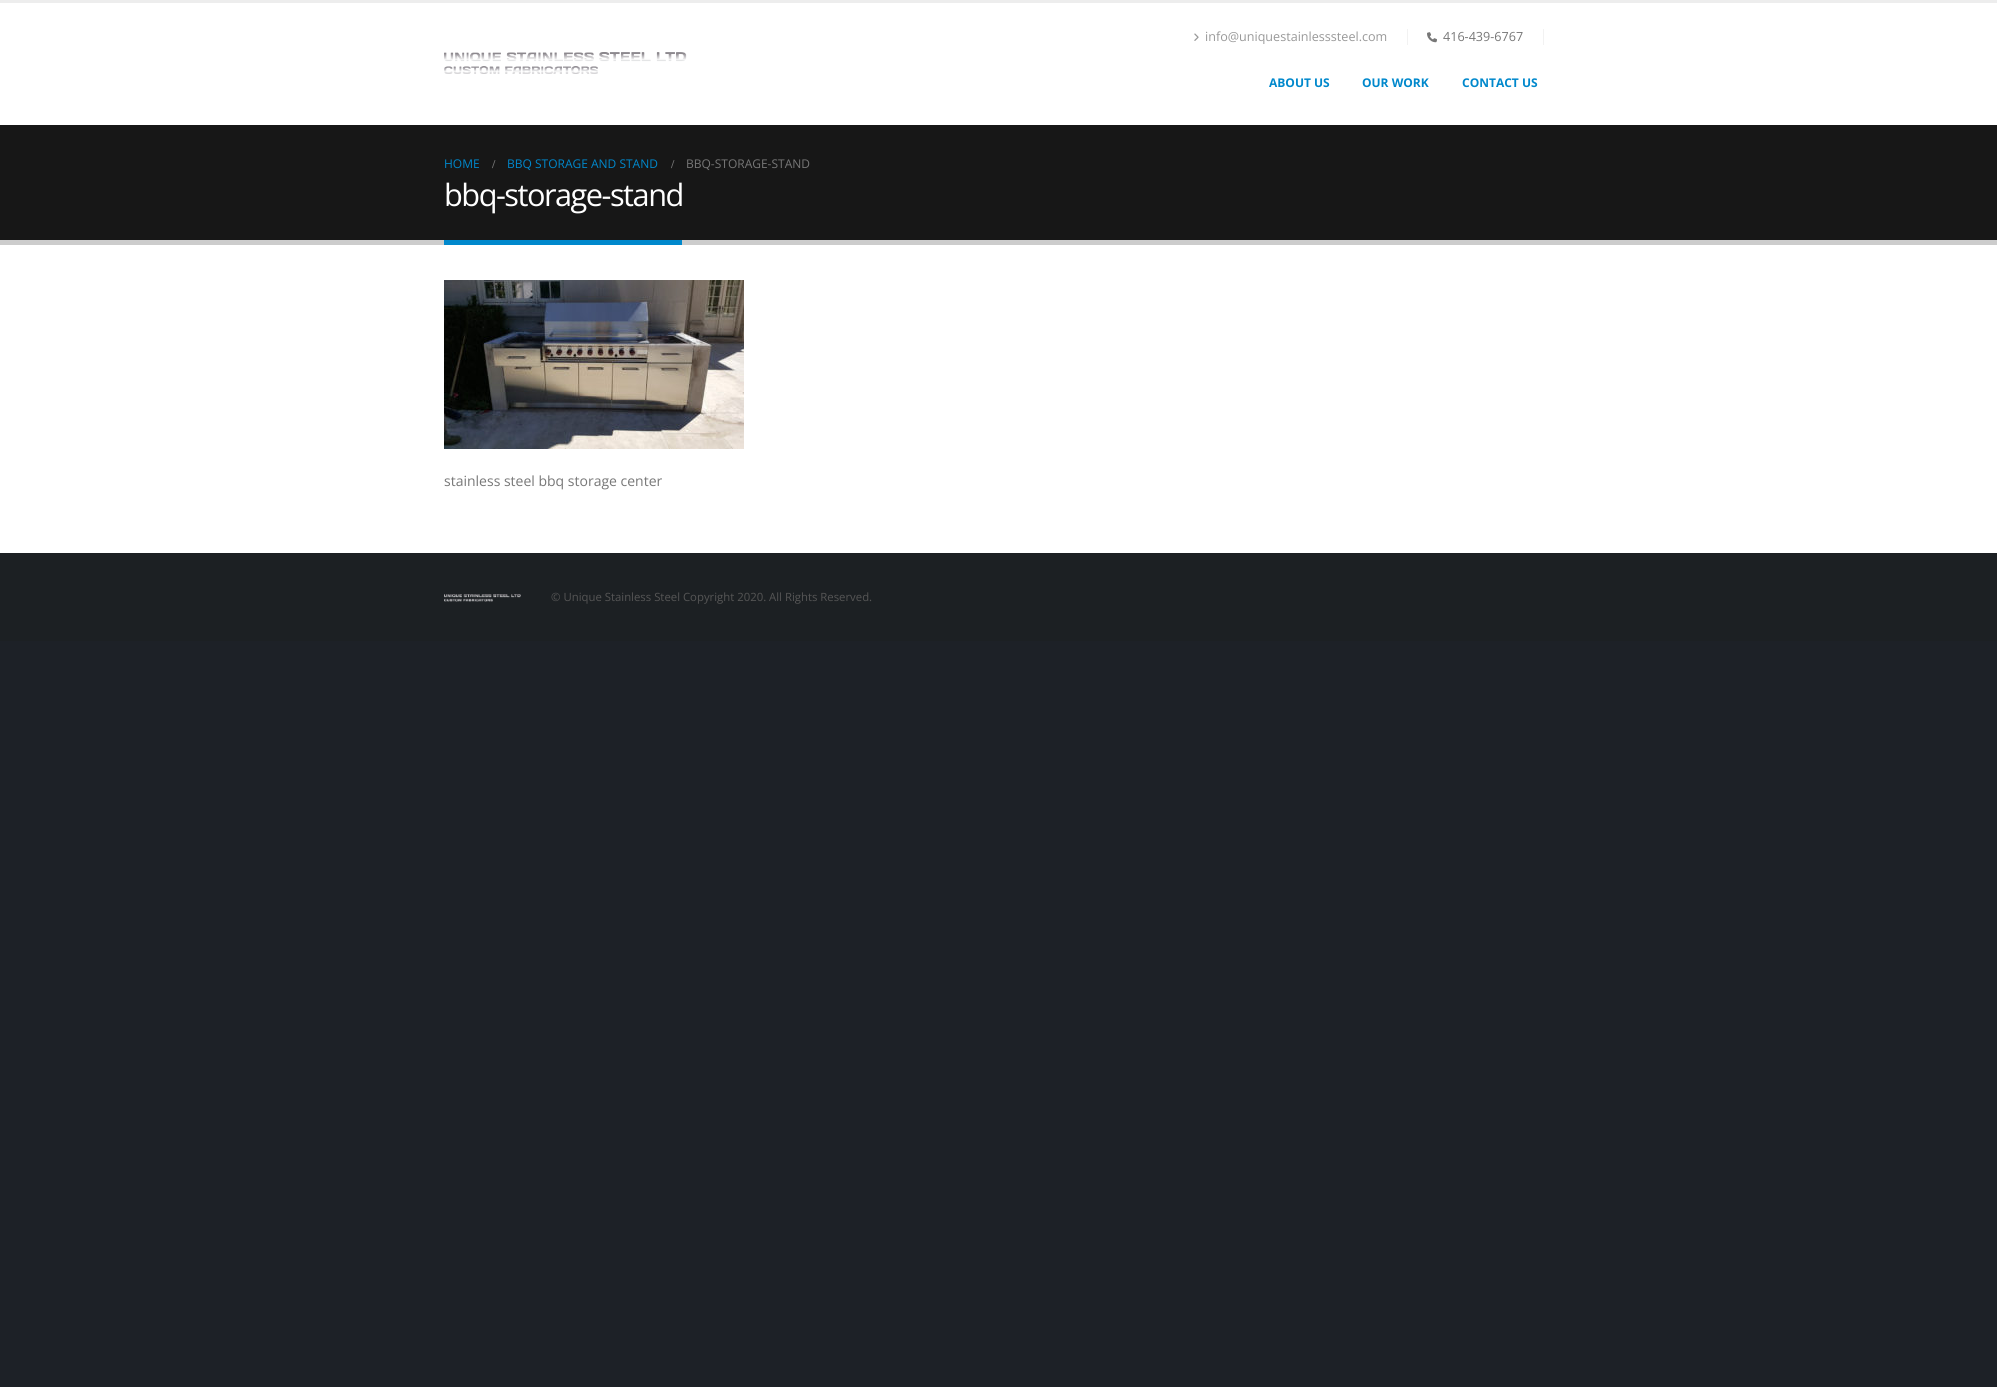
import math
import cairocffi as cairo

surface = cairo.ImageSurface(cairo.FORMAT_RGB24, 1997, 1387)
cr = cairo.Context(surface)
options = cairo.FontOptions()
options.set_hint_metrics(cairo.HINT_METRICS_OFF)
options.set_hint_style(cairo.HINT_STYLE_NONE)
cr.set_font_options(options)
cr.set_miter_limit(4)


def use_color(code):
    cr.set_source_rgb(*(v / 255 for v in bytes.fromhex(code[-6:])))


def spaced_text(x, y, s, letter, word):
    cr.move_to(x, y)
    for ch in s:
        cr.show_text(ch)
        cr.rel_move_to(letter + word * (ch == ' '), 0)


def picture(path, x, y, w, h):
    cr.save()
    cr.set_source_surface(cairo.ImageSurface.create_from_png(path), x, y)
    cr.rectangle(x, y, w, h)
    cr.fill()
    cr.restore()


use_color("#1d2127")
cr.paint()
use_color("#ededed")
cr.rectangle(0, 0, 1997, 3)
cr.fill()
use_color("#ffffff")
cr.rectangle(0, 3, 1997, 122)
cr.fill()
picture("img1.png", 444, 52, 243, 22)
picture("img2.png", 1194, 33, 5, 8)
cr.select_font_face("Open Sans")
cr.set_font_size(12.6)
use_color("#999999")
cr.move_to(1205, 41)
cr.show_text("info@uniquestainlesssteel.com")
use_color("#f2f2f2")
cr.rectangle(1407, 29, 1, 16)
cr.fill()
picture("img3.png", 1427, 32, 10, 11)
use_color("#777777")
cr.move_to(1443, 41)
cr.show_text("416-439-6767")
use_color("#f2f2f2")
cr.rectangle(1543, 29, 1, 16)
cr.fill()
cr.select_font_face("Open Sans", cairo.FONT_SLANT_NORMAL, cairo.FONT_WEIGHT_BOLD)
cr.set_font_size(12)
use_color("#0088cc")
cr.move_to(1269, 87)
cr.show_text("ABOUT US")
cr.move_to(1362, 87)
cr.show_text("OUR WORK")
cr.move_to(1462, 87)
cr.show_text("CONTACT US")
use_color("#171717")
cr.rectangle(0, 125, 1997, 115)
cr.fill()
use_color("#cccccc")
cr.rectangle(0, 240, 1997, 5)
cr.fill()
cr.select_font_face("Open Sans")
use_color("#0088cc")
cr.move_to(444, 168)
cr.show_text("HOME")
cr.select_font_face("Liberation Serif", cairo.FONT_SLANT_NORMAL, cairo.FONT_WEIGHT_BOLD)
use_color("#777777")
cr.move_to(492, 168)
cr.show_text("/")
cr.select_font_face("Open Sans")
use_color("#0088cc")
cr.move_to(507, 168)
cr.show_text("BBQ STORAGE AND STAND")
cr.select_font_face("Liberation Serif", cairo.FONT_SLANT_NORMAL, cairo.FONT_WEIGHT_BOLD)
use_color("#777777")
cr.move_to(671, 168)
cr.show_text("/")
cr.select_font_face("Open Sans")
cr.move_to(686, 168)
cr.show_text("BBQ-STORAGE-STAND")
cr.set_font_size(30.75)
use_color("#ffffff")
spaced_text(444, 206, "bbq-storage-stand", -1.5, 0)
use_color("#0088cc")
cr.rectangle(444, 240, 238, 5)
cr.fill()
use_color("#ffffff")
cr.rectangle(0, 245, 1997, 308)
cr.fill()
picture("img4.png", 444, 280, 300, 169)
cr.set_font_size(14)
use_color("#777777")
cr.move_to(444, 486)
cr.show_text("stainless steel bbq storage center")
use_color("#1c2023")
cr.rectangle(0, 553, 1997, 88)
cr.fill()
picture("img5.png", 444, 594, 77, 8)
cr.set_font_size(11.35)
use_color("#555555")
cr.move_to(551, 601)
cr.show_text("© Unique Stainless Steel Copyright 2020. All Rights Reserved.")
surface.write_to_png("result.png")
